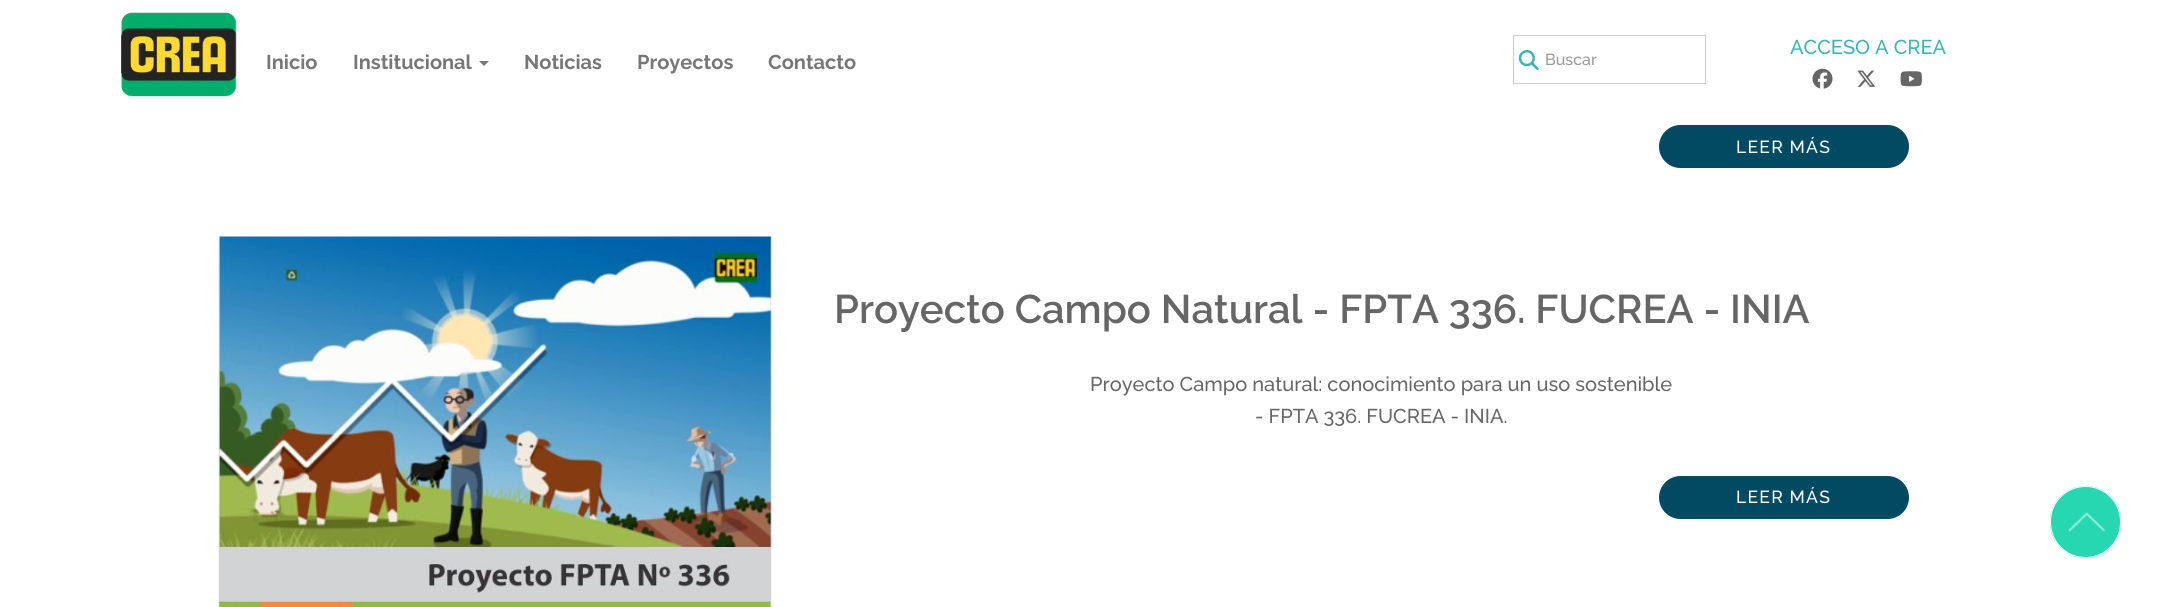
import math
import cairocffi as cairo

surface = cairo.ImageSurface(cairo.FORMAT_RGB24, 2171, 607)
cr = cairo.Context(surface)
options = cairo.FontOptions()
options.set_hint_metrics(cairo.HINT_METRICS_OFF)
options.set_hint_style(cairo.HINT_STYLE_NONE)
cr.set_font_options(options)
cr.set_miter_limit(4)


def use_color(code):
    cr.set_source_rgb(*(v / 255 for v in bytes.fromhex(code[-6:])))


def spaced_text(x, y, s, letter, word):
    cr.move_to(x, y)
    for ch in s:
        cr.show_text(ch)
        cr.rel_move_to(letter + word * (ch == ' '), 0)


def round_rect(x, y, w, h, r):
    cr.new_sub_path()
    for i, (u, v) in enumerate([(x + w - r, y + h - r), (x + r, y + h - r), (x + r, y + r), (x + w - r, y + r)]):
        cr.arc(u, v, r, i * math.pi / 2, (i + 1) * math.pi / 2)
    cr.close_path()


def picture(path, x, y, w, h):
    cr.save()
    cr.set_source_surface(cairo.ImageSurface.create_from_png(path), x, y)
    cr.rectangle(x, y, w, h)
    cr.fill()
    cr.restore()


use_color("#ffffff")
cr.paint()
picture("img1.png", 121, 12, 116, 85)
cr.select_font_face("Raleway", cairo.FONT_SLANT_NORMAL, cairo.FONT_WEIGHT_BOLD)
cr.set_font_size(20)
use_color("#777777")
cr.move_to(266, 69)
cr.show_text("Inicio")
cr.move_to(353, 69)
cr.show_text("Institucional")
cr.new_path()
cr.move_to(479, 61)
cr.line_to(489, 61)
cr.line_to(484, 66)
cr.close_path()
cr.fill()
cr.move_to(524, 69)
cr.show_text("Noticias")
cr.move_to(637, 69)
cr.show_text("Proyectos")
cr.move_to(768, 69)
cr.show_text("Contacto")
cr.select_font_face("Raleway Medium")
use_color("#3bb5b0")
cr.move_to(1790, 54)
cr.show_text("ACCESO A CREA")
cr.rectangle(1513.5, 35.5, 192, 48)
use_color("#cccccc")
cr.set_line_width(1)
cr.stroke()
picture("img2.png", 1518, 50, 21, 20)
cr.set_font_size(16)
use_color("#999999")
cr.move_to(1545, 65)
cr.show_text("Buscar")
picture("img3.png", 1812, 68, 21, 21)
picture("img4.png", 1857, 70, 19, 17)
picture("img5.png", 1900, 71, 22, 16)
use_color("#014a62")
round_rect(1659, 125, 250, 43, 21.5)
cr.fill()
cr.set_font_size(17.5)
use_color("#ffffff")
spaced_text(1736, 153, "LEER MÁS", 1.25, 0)
picture("img6.png", 218, 236, 554, 366)
cr.select_font_face("Raleway SemiBold")
cr.set_font_size(40)
use_color("#666666")
cr.move_to(834, 323)
cr.show_text("Proyecto Campo Natural - FPTA 336. FUCREA - INIA")
cr.select_font_face("Raleway Medium")
cr.set_font_size(20)
cr.move_to(1090, 391)
cr.show_text("Proyecto Campo natural: conocimiento para un uso sostenible")
cr.move_to(1255, 423)
cr.show_text("- FPTA 336. FUCREA - INIA.")
use_color("#014a62")
round_rect(1659, 476, 250, 43, 21.5)
cr.fill()
cr.set_font_size(17.5)
use_color("#ffffff")
spaced_text(1736, 503, "LEER MÁS", 1.25, 0)
picture("img7.png", 218, 601, 554, 6)
use_color("#26d8b1")
round_rect(2050, 486, 71, 72, 35.5)
cr.fill()
picture("img8.png", 2068, 512, 38, 20)
round_rect(2050.5, 486.5, 70, 71, 35)
use_color("#ffffff")
cr.stroke()
surface.write_to_png("result.png")
